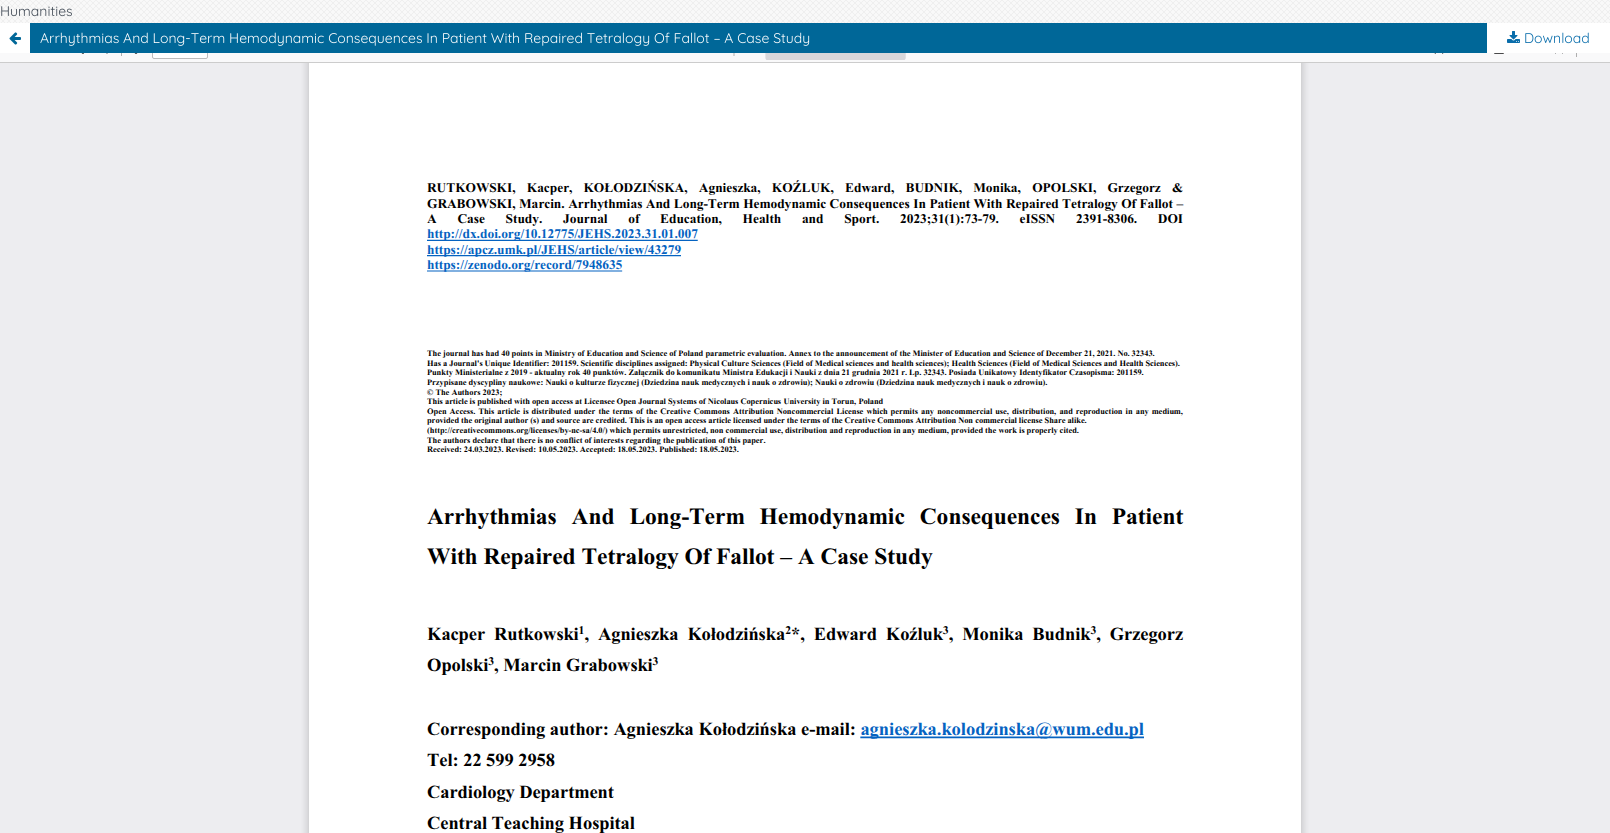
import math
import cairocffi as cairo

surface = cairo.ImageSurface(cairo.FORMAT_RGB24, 1610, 833)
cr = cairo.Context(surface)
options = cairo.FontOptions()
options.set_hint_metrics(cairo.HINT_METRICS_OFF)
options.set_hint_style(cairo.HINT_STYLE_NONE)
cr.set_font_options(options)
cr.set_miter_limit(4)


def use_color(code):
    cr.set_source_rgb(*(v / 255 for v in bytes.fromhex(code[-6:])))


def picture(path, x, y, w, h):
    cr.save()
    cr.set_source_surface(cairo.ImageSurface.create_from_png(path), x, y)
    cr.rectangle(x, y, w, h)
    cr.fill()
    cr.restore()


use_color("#ffffff")
cr.paint()
picture("img1.png", 0, 0, 1610, 23)
cr.select_font_face("Quicksand")
cr.set_font_size(14)
use_color("#434c57")
cr.move_to(0, 16)
cr.show_text("Humanities")
use_color("#006798")
cr.rectangle(30, 23, 1457, 30)
cr.fill()
picture("img2.png", 9, 32, 12, 13)
use_color("#ffffff")
cr.move_to(40, 43)
cr.show_text("Arrhythmias And Long-Term Hemodynamic Consequences In Patient With Repaired Tetralogy Of Fallot – A Case Study")
picture("img3.png", 1507, 31, 13, 12)
use_color("#096dab")
cr.move_to(1524, 43)
cr.show_text("Download")
picture("img4.png", 0, 53, 1610, 780)
surface.write_to_png("result.png")
